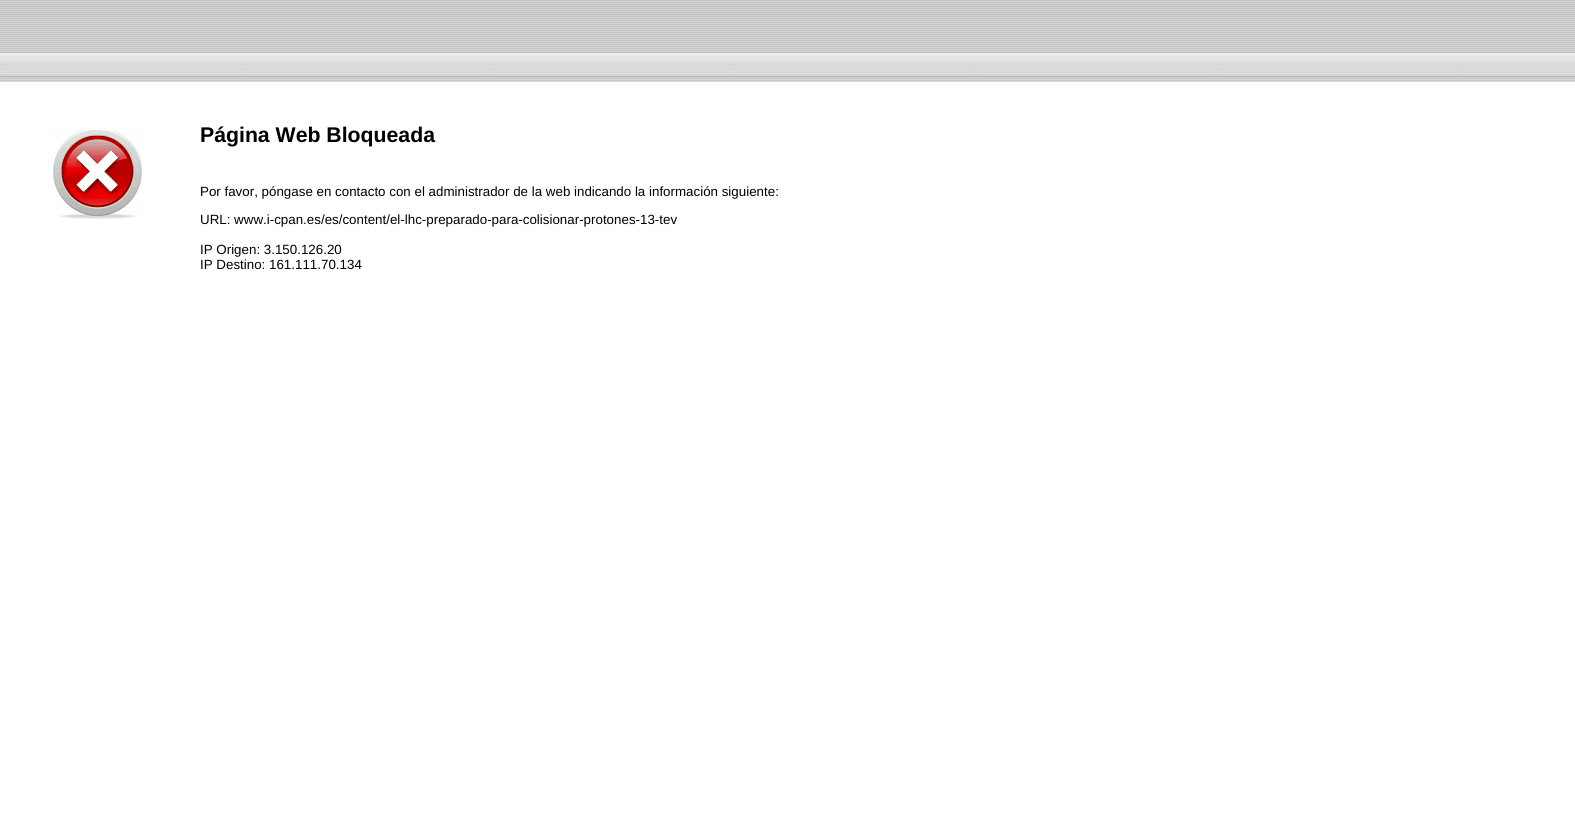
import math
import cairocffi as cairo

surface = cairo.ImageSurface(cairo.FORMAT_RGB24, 1575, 828)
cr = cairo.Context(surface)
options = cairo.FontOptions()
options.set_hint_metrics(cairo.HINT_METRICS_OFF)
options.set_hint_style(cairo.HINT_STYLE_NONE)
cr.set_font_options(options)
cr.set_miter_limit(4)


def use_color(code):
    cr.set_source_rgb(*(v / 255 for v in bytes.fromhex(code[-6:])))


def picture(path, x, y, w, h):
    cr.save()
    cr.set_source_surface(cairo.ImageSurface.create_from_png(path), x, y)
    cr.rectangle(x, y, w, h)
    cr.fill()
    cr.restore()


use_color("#ffffff")
cr.paint()
picture("img1.png", 0, 0, 1575, 82)
picture("img2.png", 53, 130, 89, 89)
cr.select_font_face("Liberation Sans", cairo.FONT_SLANT_NORMAL, cairo.FONT_WEIGHT_BOLD)
cr.set_font_size(21.25)
use_color("#000000")
cr.move_to(200, 142)
cr.show_text("Página Web Bloqueada")
cr.select_font_face("Liberation Sans")
cr.set_font_size(13.35)
cr.move_to(200, 196)
cr.show_text("Por favor, póngase en contacto con el administrador de la web indicando la información siguiente:")
cr.move_to(200, 224)
cr.show_text("URL: www.i-cpan.es/es/content/el-lhc-preparado-para-colisionar-protones-13-tev")
cr.move_to(200, 254)
cr.show_text("IP Origen: 3.150.126.20")
cr.move_to(200, 269)
cr.show_text("IP Destino: 161.111.70.134")
surface.write_to_png("result.png")
